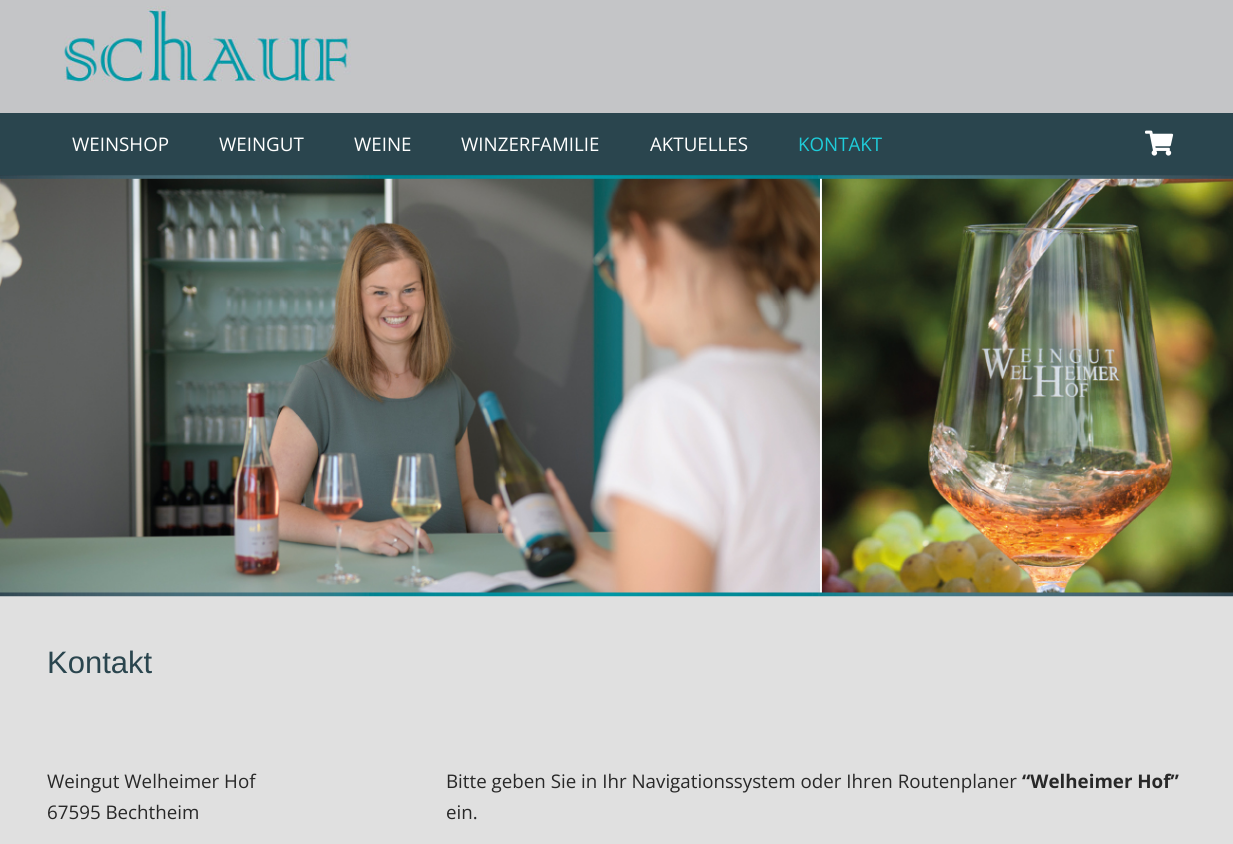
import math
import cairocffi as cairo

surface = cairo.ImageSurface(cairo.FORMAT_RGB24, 1233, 844)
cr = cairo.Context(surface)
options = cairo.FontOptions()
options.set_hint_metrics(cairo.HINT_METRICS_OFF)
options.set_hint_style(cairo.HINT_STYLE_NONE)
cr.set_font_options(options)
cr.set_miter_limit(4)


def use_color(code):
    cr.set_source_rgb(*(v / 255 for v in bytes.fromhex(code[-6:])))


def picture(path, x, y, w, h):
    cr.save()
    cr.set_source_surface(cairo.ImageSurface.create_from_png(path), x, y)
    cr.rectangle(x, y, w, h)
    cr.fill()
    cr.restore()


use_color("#e0e0e0")
cr.paint()
use_color("#c4c5c7")
cr.rectangle(0, 0, 1233, 113)
cr.fill()
picture("img1.png", 64, 6, 287, 76)
picture("img3.png", 0, 175, 1233, 422)
cr.set_source_rgba(0, 0, 0, 0.08)
cr.new_path()
cr.move_to(0, 175)
cr.line_to(0, 176)
cr.line_to(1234, 176)
cr.line_to(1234, 114)
cr.line_to(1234, 175)
cr.close_path()
cr.fill()
use_color("#2a454e")
cr.rectangle(0, 113, 1233, 62)
cr.fill()
cr.select_font_face("Open Sans")
cr.set_font_size(18.75)
use_color("#ffffff")
cr.move_to(72, 151)
cr.show_text("WEINSHOP")
cr.move_to(219, 151)
cr.show_text("WEINGUT")
cr.move_to(354, 151)
cr.show_text("WEINE")
cr.move_to(461, 151)
cr.show_text("WINZERFAMILIE")
cr.move_to(650, 151)
cr.show_text("AKTUELLES")
use_color("#1eccd9")
cr.move_to(798, 151)
cr.show_text("KONTAKT")
picture("img2.png", 1145, 130, 29, 26)
cr.select_font_face("Liberation Sans")
cr.set_font_size(31)
use_color("#2a454e")
cr.move_to(47, 673)
cr.show_text("Kontakt")
cr.select_font_face("Open Sans")
cr.set_font_size(18.75)
use_color("#282828")
cr.move_to(47, 788)
cr.show_text("Weingut Welheimer Hof")
cr.move_to(47, 819)
cr.show_text("67595 Bechtheim")
cr.move_to(446, 788)
cr.show_text("Bitte geben Sie in Ihr Navigationssystem oder Ihren Routenplaner")
cr.select_font_face("Open Sans", cairo.FONT_SLANT_NORMAL, cairo.FONT_WEIGHT_BOLD)
cr.move_to(1022, 788)
cr.show_text("“Welheimer Hof”")
cr.select_font_face("Open Sans")
cr.move_to(446, 819)
cr.show_text("ein.")
surface.write_to_png("result.png")
